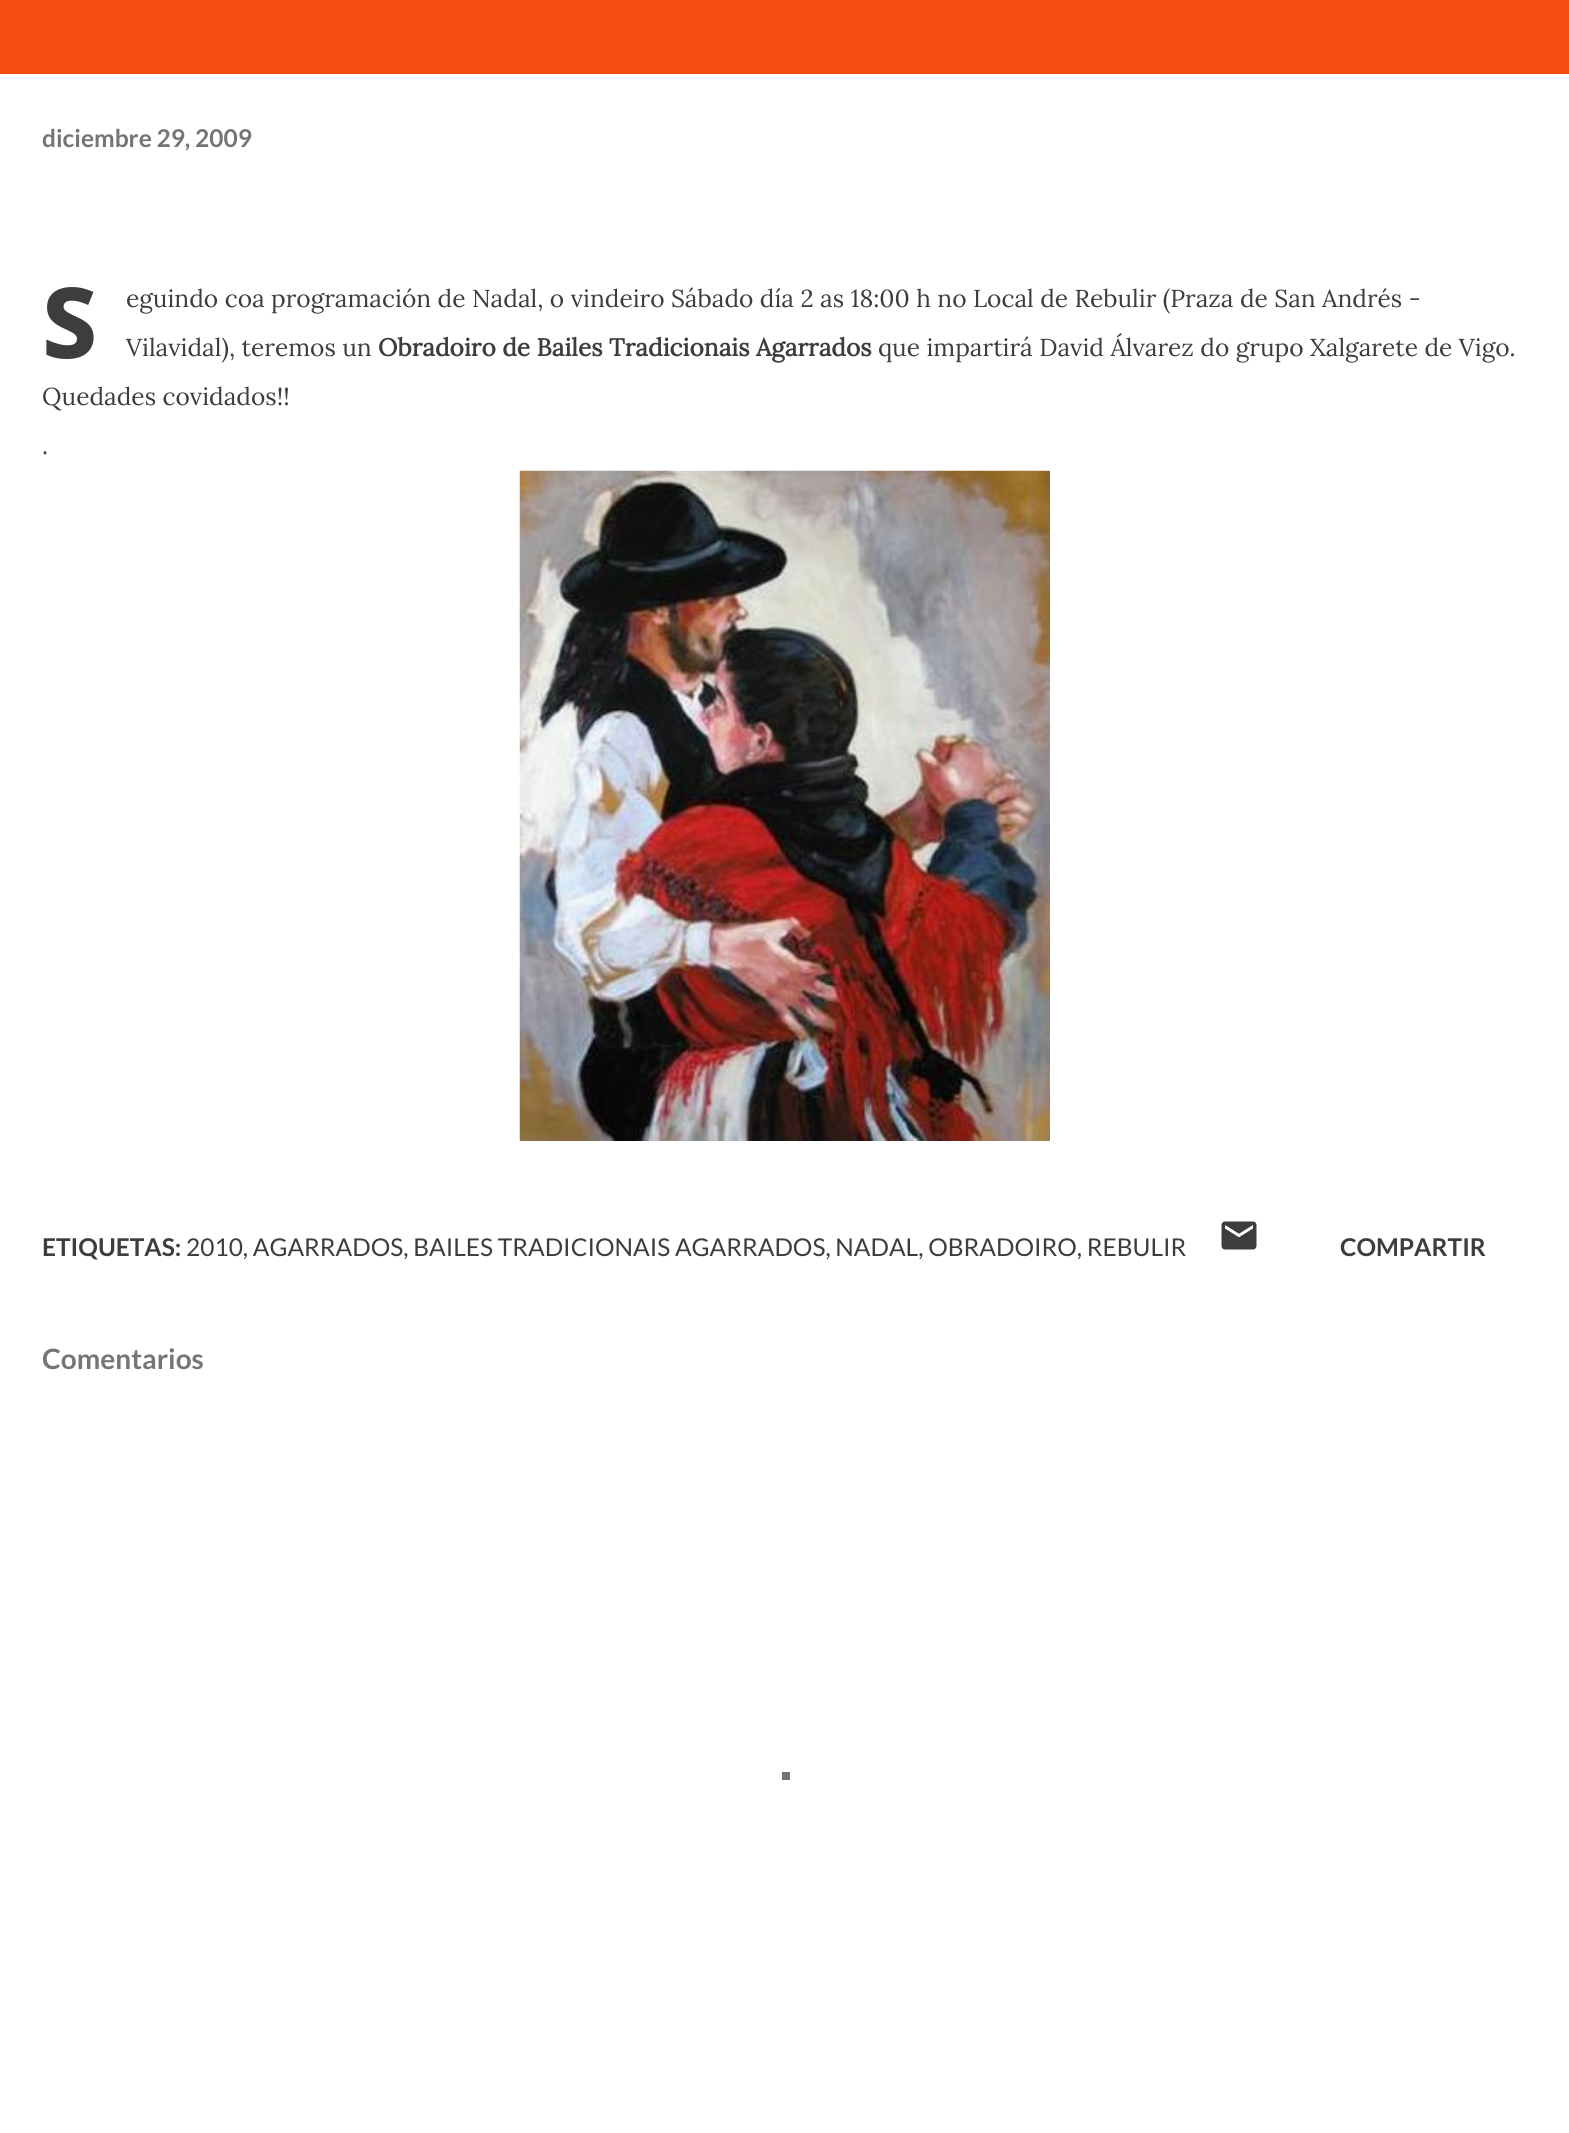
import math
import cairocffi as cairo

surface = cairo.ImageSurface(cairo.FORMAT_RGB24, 1569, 2133)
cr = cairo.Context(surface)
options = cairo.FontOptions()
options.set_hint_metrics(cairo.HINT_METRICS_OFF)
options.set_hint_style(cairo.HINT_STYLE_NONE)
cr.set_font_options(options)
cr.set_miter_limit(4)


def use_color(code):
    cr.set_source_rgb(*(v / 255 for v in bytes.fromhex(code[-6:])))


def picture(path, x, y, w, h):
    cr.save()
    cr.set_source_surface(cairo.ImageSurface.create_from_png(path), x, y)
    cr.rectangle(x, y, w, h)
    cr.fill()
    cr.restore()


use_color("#ffffff")
cr.paint()
use_color("#f34d13")
cr.rectangle(0, 0, 1569, 74)
cr.fill()
cr.select_font_face("Lato", cairo.FONT_SLANT_NORMAL, cairo.FONT_WEIGHT_BOLD)
cr.set_font_size(24.5)
use_color("#757575")
cr.move_to(42, 147)
cr.show_text("diciembre 29, 2009")
cr.select_font_face("Noto Sans ExtraBold")
cr.set_font_size(98)
use_color("#3d3e3b")
cr.move_to(42, 358)
cr.show_text("S")
cr.select_font_face("Lora")
cr.set_font_size(24.5)
cr.move_to(126, 307)
cr.show_text("eguindo coa programación de Nadal, o vindeiro Sábado día 2 as 18:00 h no Local de Rebulir (Praza de San Andrés -")
cr.move_to(126, 356)
cr.show_text("Vilavidal), teremos un")
cr.select_font_face("Lora", cairo.FONT_SLANT_NORMAL, cairo.FONT_WEIGHT_BOLD)
cr.move_to(378, 356)
cr.show_text("Obradoiro de Bailes Tradicionais Agarrados")
cr.select_font_face("Lora")
cr.move_to(878, 356)
cr.show_text("que impartirá David Álvarez do grupo Xalgarete de Vigo.")
cr.move_to(42, 405)
cr.show_text("Quedades covidados!!")
cr.move_to(42, 454)
cr.show_text(".")
picture("img1.png", 519, 470, 531, 671)
cr.select_font_face("Lato", cairo.FONT_SLANT_NORMAL, cairo.FONT_WEIGHT_BOLD)
cr.move_to(42, 1256)
cr.show_text("ETIQUETAS:")
cr.select_font_face("Lato")
cr.move_to(186, 1256)
cr.show_text("2010, AGARRADOS, BAILES TRADICIONAIS AGARRADOS, NADAL, OBRADOIRO, REBULIR")
picture("img2.png", 1221, 1221, 36, 29)
cr.select_font_face("Lato", cairo.FONT_SLANT_NORMAL, cairo.FONT_WEIGHT_BOLD)
cr.move_to(1340, 1256)
cr.show_text("COMPARTIR")
cr.set_font_size(28)
use_color("#757575")
cr.move_to(42, 1369)
cr.show_text("Comentarios")
cr.rectangle(782, 1772, 8, 8)
cr.fill()
surface.write_to_png("result.png")
